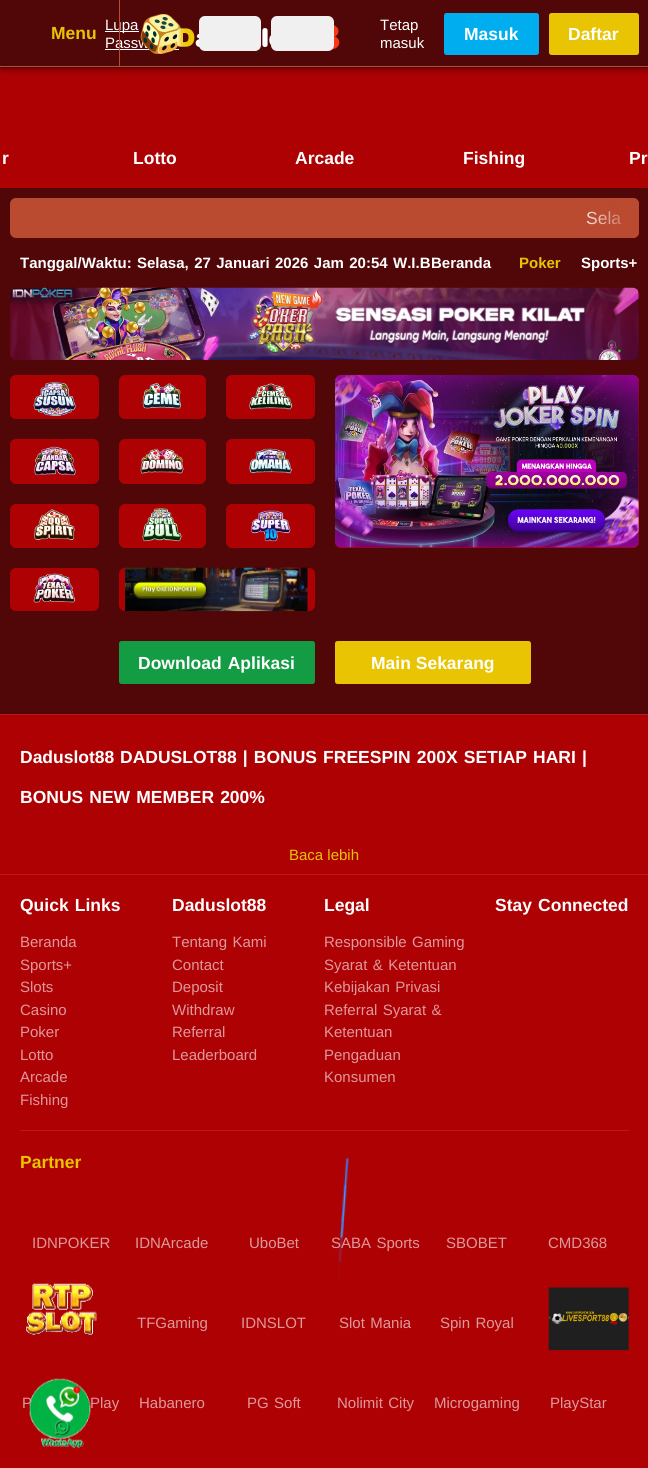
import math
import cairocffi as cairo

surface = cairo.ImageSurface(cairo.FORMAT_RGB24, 648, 1468)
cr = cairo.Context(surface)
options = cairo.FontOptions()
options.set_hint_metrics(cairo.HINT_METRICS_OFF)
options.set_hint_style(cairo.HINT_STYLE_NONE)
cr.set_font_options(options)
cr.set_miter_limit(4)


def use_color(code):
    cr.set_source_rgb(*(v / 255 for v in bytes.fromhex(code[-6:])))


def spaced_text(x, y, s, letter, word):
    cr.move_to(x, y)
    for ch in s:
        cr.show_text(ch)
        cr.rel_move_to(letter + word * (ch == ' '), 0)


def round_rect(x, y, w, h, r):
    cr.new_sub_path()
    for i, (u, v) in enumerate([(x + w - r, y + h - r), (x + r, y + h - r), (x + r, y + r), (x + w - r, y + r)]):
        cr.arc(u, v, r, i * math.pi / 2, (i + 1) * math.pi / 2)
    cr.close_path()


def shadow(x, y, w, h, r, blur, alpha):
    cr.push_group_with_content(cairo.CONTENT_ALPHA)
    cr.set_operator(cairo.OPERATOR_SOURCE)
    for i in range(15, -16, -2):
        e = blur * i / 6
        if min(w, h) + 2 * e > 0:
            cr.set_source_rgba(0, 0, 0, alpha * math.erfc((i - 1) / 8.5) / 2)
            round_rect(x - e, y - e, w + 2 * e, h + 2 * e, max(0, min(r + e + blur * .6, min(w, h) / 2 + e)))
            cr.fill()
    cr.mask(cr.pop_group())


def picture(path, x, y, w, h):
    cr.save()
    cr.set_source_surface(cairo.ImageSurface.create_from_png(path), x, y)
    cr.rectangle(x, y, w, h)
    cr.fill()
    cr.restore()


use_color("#510708")
cr.paint()
use_color("#ae0104")
cr.rectangle(0, 68, 648, 120)
cr.fill()
use_color("#000000")
shadow(0, 1, 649, 68, 0, 5, 0.12)
shadow(0, 4, 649, 67, 0, 2.5, 0.14)
shadow(3, 6, 643, 63, 0, 2, 0.2)
use_color("#510708")
cr.rectangle(0, 0, 648, 68)
cr.fill()
use_color("#ba4a30")
cr.rectangle(0, 66, 648, 1)
cr.fill()
use_color("#ffffff")
cr.rectangle(105, 31, 34, 1)
cr.fill()
cr.select_font_face("Liberation Sans")
cr.set_font_size(15)
cr.move_to(105, 30)
cr.show_text("Lupa")
cr.move_to(105, 48)
cr.show_text("Passw")
cr.rectangle(105, 49, 74, 1)
cr.fill()
use_color("#ba4a30")
cr.rectangle(119, 0, 1, 66)
cr.fill()
cr.select_font_face("Liberation Sans", cairo.FONT_SLANT_NORMAL, cairo.FONT_WEIGHT_BOLD)
cr.set_font_size(17.5)
use_color("#e8c402")
cr.move_to(51, 39)
cr.show_text("Menu")
picture("img1.png", 140, 14, 200, 40)
use_color("#f0f0f0")
round_rect(199, 16, 62, 35, 6)
cr.fill()
round_rect(271, 16, 63, 35, 6)
cr.fill()
cr.select_font_face("Liberation Sans")
cr.set_font_size(15)
use_color("#ffffff")
cr.move_to(380, 30)
cr.show_text("Tetap")
cr.move_to(380, 48)
cr.show_text("masuk")
use_color("#00aeef")
round_rect(444, 13, 95, 42, 2.5)
cr.fill()
cr.select_font_face("Liberation Sans", cairo.FONT_SLANT_NORMAL, cairo.FONT_WEIGHT_BOLD)
cr.set_font_size(17.5)
use_color("#ffffff")
cr.move_to(464, 40)
cr.show_text("Masuk")
use_color("#e8c402")
round_rect(549, 13, 90, 42, 2.5)
cr.fill()
use_color("#ffffff")
cr.move_to(568, 40)
cr.show_text("Daftar")
cr.move_to(2, 164)
cr.show_text("r")
cr.move_to(133, 164)
cr.show_text("Lotto")
cr.move_to(295, 164)
cr.show_text("Arcade")
cr.move_to(463, 164)
cr.show_text("Fishing")
cr.move_to(629, 164)
cr.show_text("Pr")
use_color("#ba4a30")
round_rect(10, 198, 629, 40, 6)
cr.fill()
cr.select_font_face("Liberation Sans")
use_color("#ffffff")
spaced_text(586, 224, "Sela", 0, 1.25)
gradient = cairo.LinearGradient(639, 218, 576, 218)
gradient.add_color_stop_rgba(0, 0.729, 0.29, 0.188, 1)
gradient.add_color_stop_rgba(1, 0.729, 0.29, 0.188, 0)
cr.set_source(gradient)
cr.new_path()
cr.move_to(576, 198)
cr.line_to(633, 198)
cr.curve_to(636.5, 198, 639, 200.5, 639, 204)
cr.line_to(639, 232)
cr.curve_to(639, 235.5, 636.5, 238, 633, 238)
cr.line_to(576, 238)
cr.close_path()
cr.fill()
cr.select_font_face("Liberation Sans", cairo.FONT_SLANT_NORMAL, cairo.FONT_WEIGHT_BOLD)
cr.set_font_size(15)
use_color("#ffffff")
cr.move_to(20, 268)
cr.show_text("Tanggal/Waktu:")
spaced_text(137, 268, "Selasa, 27 Januari 2026 Jam 20:54 W.I.B", 0, 1.25)
cr.move_to(431, 268)
cr.show_text("Beranda")
use_color("#e8c402")
cr.move_to(519, 268)
cr.show_text("Poker")
use_color("#ffffff")
cr.move_to(581, 268)
cr.show_text("Sports+")
picture("img2.png", 10, 287, 629, 73)
use_color("#ae0104")
round_rect(10, 375, 89, 44, 6)
cr.fill()
picture("img3.png", 33, 382, 43, 34)
round_rect(119, 375, 87, 44, 6)
cr.fill()
picture("img4.png", 142, 382, 40, 27)
round_rect(226, 375, 89, 44, 6)
cr.fill()
picture("img5.png", 249, 383, 44, 27)
round_rect(335, 375, 304, 173, 6)
cr.fill()
picture("img6.png", 335, 375, 304, 173)
round_rect(10, 439, 89, 45, 6)
cr.fill()
picture("img7.png", 34, 446, 42, 30)
round_rect(119, 439, 87, 45, 6)
cr.fill()
picture("img8.png", 140, 448, 44, 26)
round_rect(226, 439, 89, 45, 6)
cr.fill()
picture("img9.png", 249, 448, 43, 26)
round_rect(10, 504, 89, 44, 6)
cr.fill()
picture("img10.png", 34, 509, 41, 31)
round_rect(119, 504, 87, 44, 6)
cr.fill()
picture("img11.png", 142, 508, 40, 34)
round_rect(226, 504, 89, 44, 6)
cr.fill()
picture("img12.png", 251, 510, 40, 32)
round_rect(10, 568, 89, 43, 6)
cr.fill()
picture("img13.png", 33, 573, 43, 30)
round_rect(119, 568, 196, 43, 6)
cr.fill()
picture("img14.png", 125, 567, 183, 45)
use_color("#139c44")
round_rect(119, 641, 196, 43, 2.5)
cr.fill()
cr.set_font_size(17.5)
use_color("#ffffff")
spaced_text(138, 669, "Download Aplikasi", 0, 1.25)
use_color("#e8c402")
round_rect(335, 641, 196, 43, 2.5)
cr.fill()
use_color("#ffffff")
cr.move_to(371, 669)
cr.show_text("Main Sekarang")
use_color("#ae0104")
cr.rectangle(0, 715, 648, 159)
cr.fill()
use_color("#b61a1d")
cr.rectangle(0, 714, 648, 1)
cr.fill()
cr.rectangle(0, 874, 648, 1)
cr.fill()
use_color("#ffffff")
cr.move_to(20, 763)
cr.show_text("Daduslot88")
spaced_text(120, 763, "DADUSLOT88 | BONUS FREESPIN 200X SETIAP HARI |", 0, 1.25)
spaced_text(20, 803, "BONUS NEW MEMBER 200%", 0, 1.25)
cr.select_font_face("Liberation Sans")
cr.set_font_size(15)
use_color("#e8c402")
cr.move_to(289, 860)
cr.show_text("Baca lebih")
use_color("#ae0104")
cr.rectangle(0, 875, 648, 593)
cr.fill()
use_color("#b61a1d")
cr.rectangle(20, 1130, 609, 1)
cr.fill()
cr.select_font_face("Liberation Sans", cairo.FONT_SLANT_NORMAL, cairo.FONT_WEIGHT_BOLD)
cr.set_font_size(17.5)
use_color("#ffffff")
spaced_text(20, 911, "Quick Links", 0, 1.25)
cr.select_font_face("Liberation Sans")
cr.set_font_size(15)
use_color("#df999b")
cr.move_to(20, 947)
cr.show_text("Beranda")
cr.move_to(20, 970)
cr.show_text("Sports+")
cr.move_to(20, 992)
cr.show_text("Slots")
cr.move_to(20, 1015)
cr.show_text("Casino")
cr.move_to(20, 1037)
cr.show_text("Poker")
cr.move_to(20, 1060)
cr.show_text("Lotto")
cr.move_to(20, 1082)
cr.show_text("Arcade")
cr.move_to(20, 1105)
cr.show_text("Fishing")
cr.select_font_face("Liberation Sans", cairo.FONT_SLANT_NORMAL, cairo.FONT_WEIGHT_BOLD)
cr.set_font_size(17.5)
use_color("#ffffff")
cr.move_to(172, 911)
cr.show_text("Daduslot88")
cr.select_font_face("Liberation Sans")
cr.set_font_size(15)
use_color("#df999b")
spaced_text(172, 947, "Tentang Kami", 0, 1.25)
cr.move_to(172, 970)
cr.show_text("Contact")
cr.move_to(172, 992)
cr.show_text("Deposit")
cr.move_to(172, 1015)
cr.show_text("Withdraw")
cr.move_to(172, 1037)
cr.show_text("Referral")
cr.move_to(172, 1060)
cr.show_text("Leaderboard")
cr.select_font_face("Liberation Sans", cairo.FONT_SLANT_NORMAL, cairo.FONT_WEIGHT_BOLD)
cr.set_font_size(17.5)
use_color("#ffffff")
cr.move_to(324, 911)
cr.show_text("Legal")
cr.select_font_face("Liberation Sans")
cr.set_font_size(15)
use_color("#df999b")
spaced_text(324, 947, "Responsible Gaming", 0, 1.25)
spaced_text(324, 970, "Syarat & Ketentuan", 0, 1.25)
spaced_text(324, 992, "Kebijakan Privasi", 0, 1.25)
spaced_text(324, 1015, "Referral Syarat &", 0, 1.25)
cr.move_to(324, 1037)
cr.show_text("Ketentuan")
cr.move_to(324, 1060)
cr.show_text("Pengaduan")
cr.move_to(324, 1082)
cr.show_text("Konsumen")
cr.select_font_face("Liberation Sans", cairo.FONT_SLANT_NORMAL, cairo.FONT_WEIGHT_BOLD)
cr.set_font_size(17.5)
use_color("#ffffff")
spaced_text(495, 911, "Stay Connected", 0, 1.25)
use_color("#e8c402")
cr.move_to(20, 1168)
cr.show_text("Partner")
cr.select_font_face("Liberation Sans")
cr.set_font_size(15)
use_color("#df999b")
cr.move_to(32, 1248)
cr.show_text("IDNPOKER")
cr.move_to(135, 1248)
cr.show_text("IDNArcade")
cr.move_to(249, 1248)
cr.show_text("UboBet")
spaced_text(331, 1248, "SABA Sports", 0, 1.25)
cr.move_to(446, 1248)
cr.show_text("SBOBET")
cr.move_to(548, 1248)
cr.show_text("CMD368")
cr.move_to(137, 1328)
cr.show_text("TFGaming")
cr.move_to(241, 1328)
cr.show_text("IDNSLOT")
spaced_text(339, 1328, "Slot Mania", 0, 1.25)
spaced_text(440, 1328, "Spin Royal", 0, 1.25)
cr.move_to(22, 1408)
cr.show_text("P")
cr.move_to(90, 1408)
cr.show_text("Play")
cr.move_to(139, 1408)
cr.show_text("Habanero")
spaced_text(247, 1408, "PG Soft", 0, 1.25)
spaced_text(337, 1408, "Nolimit City", 0, 1.25)
cr.move_to(434, 1408)
cr.show_text("Microgaming")
cr.move_to(550, 1408)
cr.show_text("PlayStar")
picture("img15.png", 26, 1283, 71, 52)
picture("img16.png", 29, 1378, 62, 71)
picture("img17.png", 548, 1287, 81, 64)
picture("img18.png", 338, 1157, 11, 127)
surface.write_to_png("result.png")
